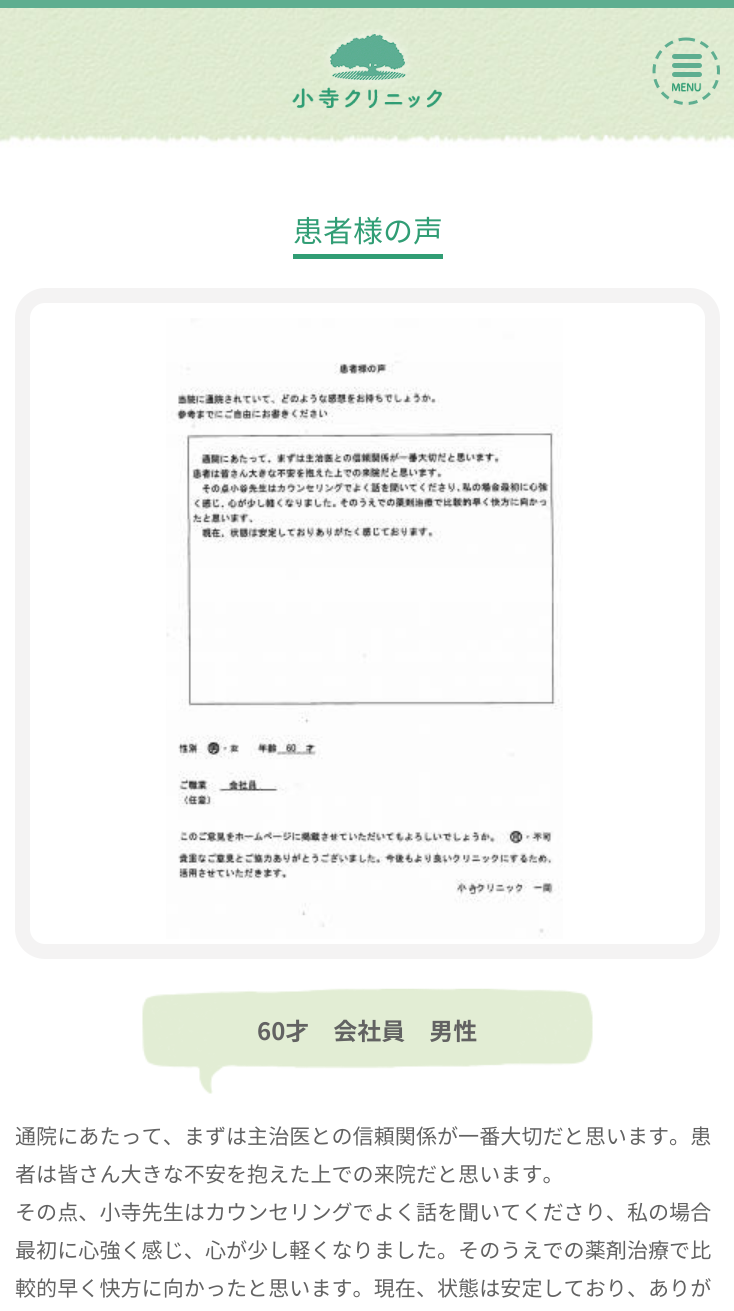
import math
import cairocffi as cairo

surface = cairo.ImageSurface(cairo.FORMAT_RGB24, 734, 1311)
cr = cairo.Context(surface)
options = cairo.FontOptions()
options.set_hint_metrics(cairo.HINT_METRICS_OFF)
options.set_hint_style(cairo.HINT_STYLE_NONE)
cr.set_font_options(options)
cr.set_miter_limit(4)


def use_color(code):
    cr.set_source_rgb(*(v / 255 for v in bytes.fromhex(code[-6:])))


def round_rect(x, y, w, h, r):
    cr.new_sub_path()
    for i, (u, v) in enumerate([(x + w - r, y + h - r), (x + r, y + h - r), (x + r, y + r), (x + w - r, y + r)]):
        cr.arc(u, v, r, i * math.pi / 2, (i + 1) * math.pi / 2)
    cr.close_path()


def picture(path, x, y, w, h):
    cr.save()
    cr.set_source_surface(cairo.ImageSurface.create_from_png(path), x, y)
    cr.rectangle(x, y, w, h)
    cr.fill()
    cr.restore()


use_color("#ffffff")
cr.paint()
picture("img1.png", 0, 8, 734, 115)
use_color("#5eae90")
cr.rectangle(0, 0, 734, 8)
cr.fill()
picture("img2.png", 292, 29, 151, 79)
cr.new_path()
cr.move_to(686, 39)
cr.curve_to(704, 39, 718.5, 53.5, 718.5, 71)
cr.curve_to(718.5, 89, 704, 103.5, 686, 103.5)
cr.curve_to(668.5, 103.5, 654, 89, 654, 71)
cr.curve_to(654, 53.5, 668.5, 39, 686, 39)
cr.close_path()
cr.set_line_width(3)
cr.set_dash([9, 6])
cr.stroke()
round_rect(672, 54, 30, 5, 2.5)
cr.fill()
round_rect(672, 63, 30, 5, 2.5)
cr.fill()
round_rect(672, 72, 30, 5, 2.5)
cr.fill()
picture("img3.png", 672, 82, 30, 10)
picture("img4.png", 0, 123, 734, 30)
use_color("#309d74")
cr.rectangle(293, 254, 150, 5)
cr.fill()
cr.select_font_face("Noto Sans JP")
cr.set_font_size(30)
cr.move_to(293, 242)
cr.show_text("患者様の声")
round_rect(22.5, 295.5, 690, 656, 22.5)
use_color("#f4f3f3")
cr.set_line_width(15)
cr.set_dash([])
cr.stroke()
picture("img5.png", 166, 318, 397, 621)
picture("img6.png", 142, 988, 451, 106)
cr.select_font_face("Noto Sans JP", cairo.FONT_SLANT_NORMAL, cairo.FONT_WEIGHT_BOLD)
cr.set_font_size(24)
use_color("#626262")
cr.move_to(257, 1040)
cr.show_text("60才　会社員　男性")
cr.select_font_face("Noto Sans JP")
cr.set_font_size(21.1)
cr.move_to(15, 1144)
cr.show_text("通院にあたって、まずは主治医との信頼関係が一番大切だと思います。患")
cr.move_to(15, 1182)
cr.show_text("者は皆さん大きな不安を抱えた上での来院だと思います。")
cr.move_to(15, 1220)
cr.show_text("その点、小寺先生はカウンセリングでよく話を聞いてくださり、私の場合")
cr.move_to(15, 1258)
cr.show_text("最初に心強く感じ、心が少し軽くなりました。そのうえでの薬剤治療で比")
cr.move_to(15, 1296)
cr.show_text("較的早く快方に向かったと思います。現在、状態は安定しており、ありが")
surface.write_to_png("result.png")
